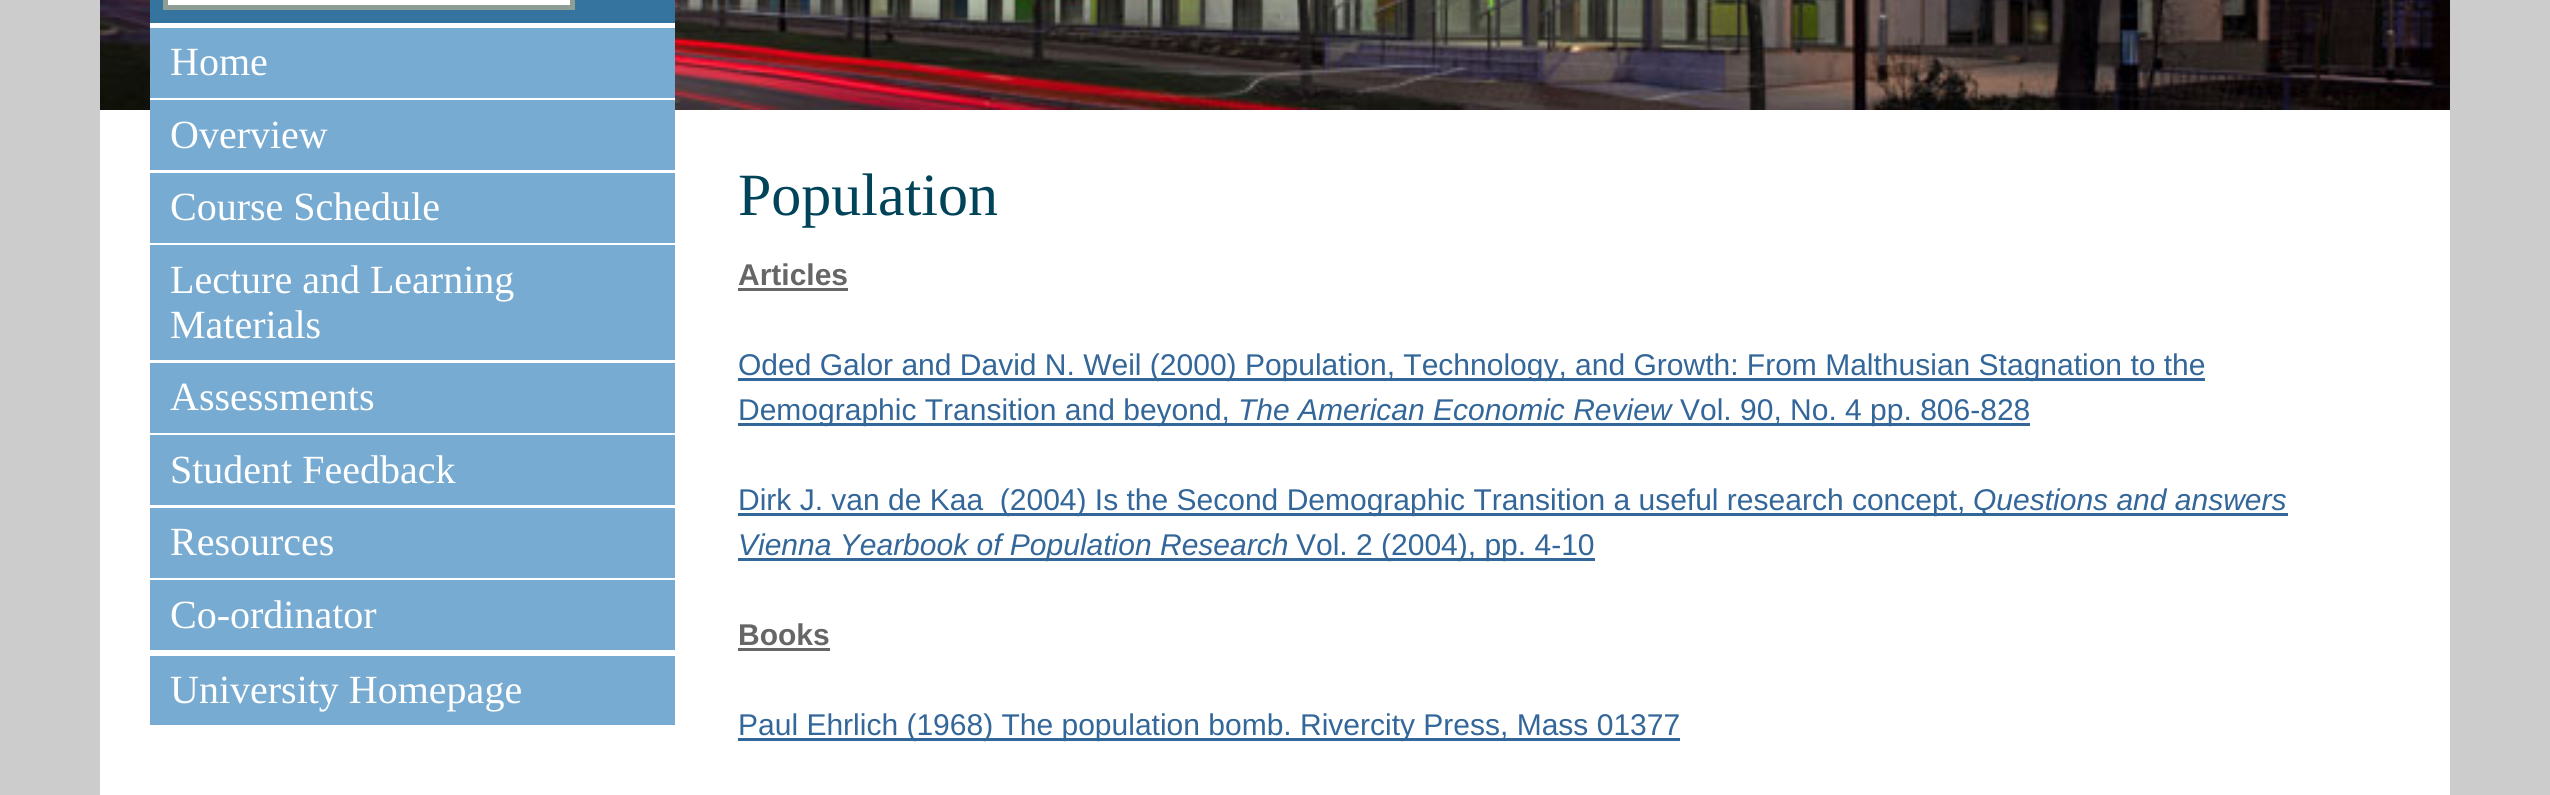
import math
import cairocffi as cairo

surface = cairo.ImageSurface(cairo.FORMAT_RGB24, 2550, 795)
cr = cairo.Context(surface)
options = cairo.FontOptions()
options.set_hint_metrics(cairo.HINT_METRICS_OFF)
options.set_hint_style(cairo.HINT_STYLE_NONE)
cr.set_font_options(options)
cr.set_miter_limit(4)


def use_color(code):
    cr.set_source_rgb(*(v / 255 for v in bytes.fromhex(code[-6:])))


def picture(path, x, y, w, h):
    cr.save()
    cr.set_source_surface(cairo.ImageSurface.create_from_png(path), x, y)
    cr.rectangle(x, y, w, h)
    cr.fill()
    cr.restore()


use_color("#cccccc")
cr.paint()
use_color("#ffffff")
cr.rectangle(100, 110, 2350, 685)
cr.fill()
picture("img1.png", 100, 0, 2350, 110)
use_color("#3674a0")
cr.rectangle(150, 0, 525, 23)
cr.fill()
use_color("#ffffff")
cr.rectangle(150, 23, 525, 5)
cr.fill()
cr.rectangle(165.5, -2.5, 407, 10)
cr.fill_preserve()
use_color("#8f9e94")
cr.set_line_width(5)
cr.stroke()
use_color("#78abd1")
cr.rectangle(150, 28, 525, 70)
cr.fill()
use_color("#ffffff")
cr.rectangle(150, 98, 525, 2)
cr.fill()
cr.select_font_face("Liberation Serif")
cr.set_font_size(40)
cr.move_to(170, 75)
cr.show_text("Home")
use_color("#78abd1")
cr.rectangle(150, 100, 525, 70)
cr.fill()
use_color("#ffffff")
cr.move_to(170, 148)
cr.show_text("Overview")
use_color("#78abd1")
cr.rectangle(150, 173, 525, 70)
cr.fill()
use_color("#ffffff")
cr.move_to(170, 220)
cr.show_text("Course Schedule")
use_color("#78abd1")
cr.rectangle(150, 245, 525, 115)
cr.fill()
use_color("#ffffff")
cr.move_to(170, 293)
cr.show_text("Lecture and Learning")
cr.move_to(170, 338)
cr.show_text("Materials")
use_color("#78abd1")
cr.rectangle(150, 363, 525, 70)
cr.fill()
use_color("#ffffff")
cr.move_to(170, 410)
cr.show_text("Assessments")
use_color("#78abd1")
cr.rectangle(150, 435, 525, 70)
cr.fill()
use_color("#ffffff")
cr.move_to(170, 483)
cr.show_text("Student Feedback")
use_color("#78abd1")
cr.rectangle(150, 508, 525, 70)
cr.fill()
use_color("#ffffff")
cr.move_to(170, 555)
cr.show_text("Resources")
use_color("#78abd1")
cr.rectangle(150, 580, 525, 70)
cr.fill()
use_color("#ffffff")
cr.move_to(170, 628)
cr.show_text("Co-ordinator")
use_color("#78abd1")
cr.rectangle(150, 656, 525, 69)
cr.fill()
use_color("#ffffff")
cr.move_to(170, 703)
cr.show_text("University Homepage")
cr.set_font_size(60)
use_color("#014359")
cr.move_to(738, 215)
cr.show_text("Population")
cr.select_font_face("Liberation Sans", cairo.FONT_SLANT_NORMAL, cairo.FONT_WEIGHT_BOLD)
cr.set_font_size(30)
use_color("#666666")
cr.move_to(738, 285)
cr.show_text("Articles")
cr.rectangle(738, 288, 110, 3)
cr.fill()
use_color("#336699")
cr.rectangle(738, 378, 1467, 3)
cr.fill()
cr.select_font_face("Liberation Sans")
cr.move_to(738, 375)
cr.show_text("Oded Galor and David N. Weil (2000) Population, Technology, and Growth: From Malthusian Stagnation to the")
cr.rectangle(738, 423, 1292, 3)
cr.fill()
cr.move_to(738, 420)
cr.show_text("Demographic Transition and beyond,")
cr.select_font_face("Liberation Sans", cairo.FONT_SLANT_ITALIC)
cr.move_to(1238, 420)
cr.show_text("The American Economic Review")
cr.select_font_face("Liberation Sans")
cr.move_to(1680, 420)
cr.show_text("Vol. 90, No. 4 pp. 806-828")
cr.rectangle(738, 513, 1550, 3)
cr.fill()
cr.move_to(738, 510)
cr.show_text("Dirk J. van de Kaa  (2004) Is the Second Demographic Transition a useful research concept,")
cr.select_font_face("Liberation Sans", cairo.FONT_SLANT_ITALIC)
cr.move_to(1973, 510)
cr.show_text("Questions and answers")
cr.rectangle(738, 558, 857, 3)
cr.fill()
cr.move_to(738, 555)
cr.show_text("Vienna Yearbook of Population Research")
cr.select_font_face("Liberation Sans")
cr.move_to(1296, 555)
cr.show_text("Vol. 2 (2004), pp. 4-10")
cr.select_font_face("Liberation Sans", cairo.FONT_SLANT_NORMAL, cairo.FONT_WEIGHT_BOLD)
use_color("#666666")
cr.move_to(738, 645)
cr.show_text("Books")
cr.rectangle(738, 648, 92, 3)
cr.fill()
use_color("#336699")
cr.rectangle(738, 738, 942, 3)
cr.fill()
cr.select_font_face("Liberation Sans")
cr.move_to(738, 735)
cr.show_text("Paul Ehrlich (1968) The population bomb. Rivercity Press, Mass 01377")
surface.write_to_png("result.png")
